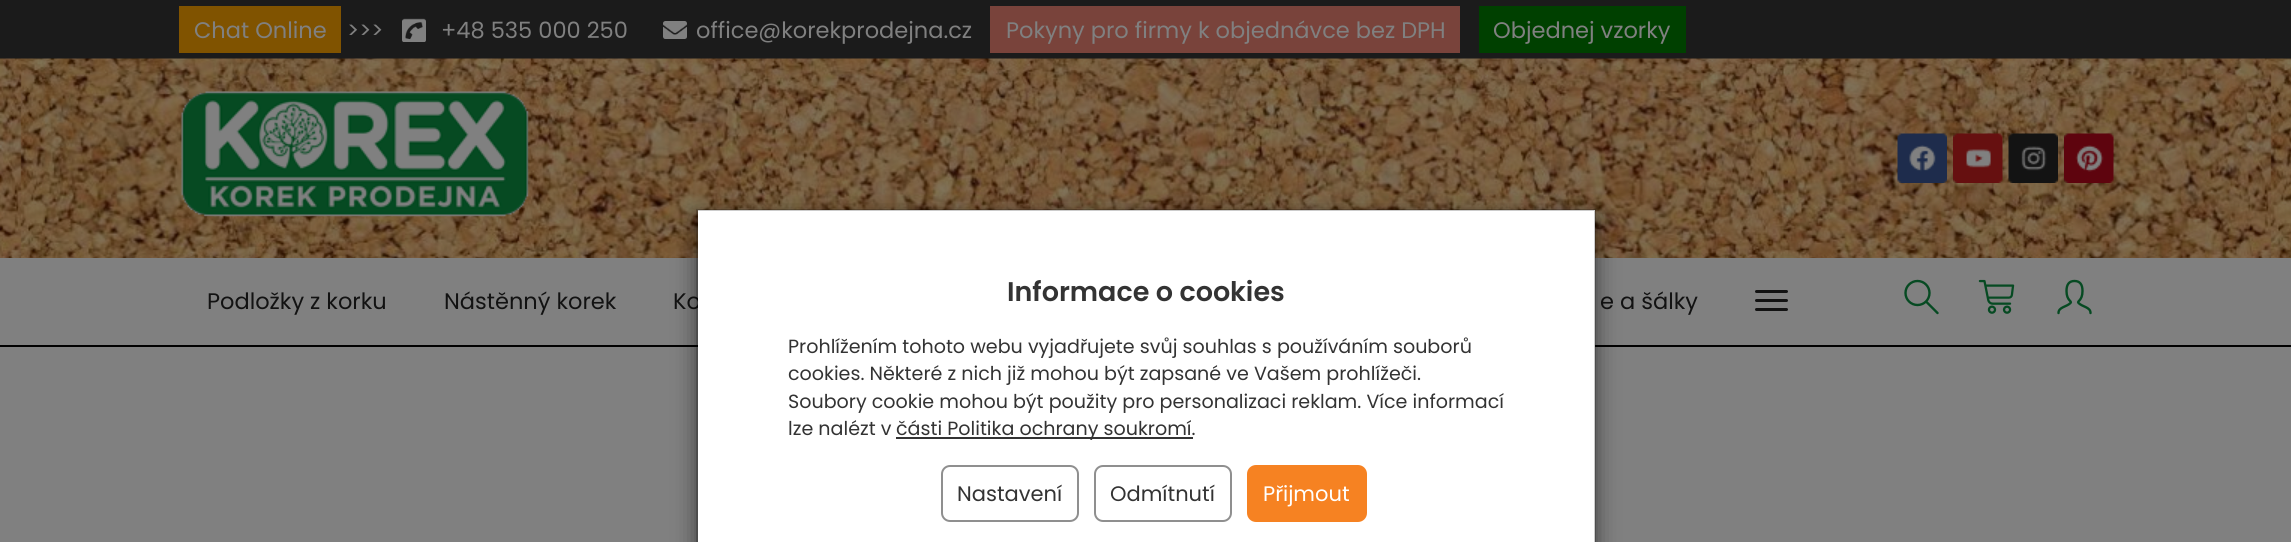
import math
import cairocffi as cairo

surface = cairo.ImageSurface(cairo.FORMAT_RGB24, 2291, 542)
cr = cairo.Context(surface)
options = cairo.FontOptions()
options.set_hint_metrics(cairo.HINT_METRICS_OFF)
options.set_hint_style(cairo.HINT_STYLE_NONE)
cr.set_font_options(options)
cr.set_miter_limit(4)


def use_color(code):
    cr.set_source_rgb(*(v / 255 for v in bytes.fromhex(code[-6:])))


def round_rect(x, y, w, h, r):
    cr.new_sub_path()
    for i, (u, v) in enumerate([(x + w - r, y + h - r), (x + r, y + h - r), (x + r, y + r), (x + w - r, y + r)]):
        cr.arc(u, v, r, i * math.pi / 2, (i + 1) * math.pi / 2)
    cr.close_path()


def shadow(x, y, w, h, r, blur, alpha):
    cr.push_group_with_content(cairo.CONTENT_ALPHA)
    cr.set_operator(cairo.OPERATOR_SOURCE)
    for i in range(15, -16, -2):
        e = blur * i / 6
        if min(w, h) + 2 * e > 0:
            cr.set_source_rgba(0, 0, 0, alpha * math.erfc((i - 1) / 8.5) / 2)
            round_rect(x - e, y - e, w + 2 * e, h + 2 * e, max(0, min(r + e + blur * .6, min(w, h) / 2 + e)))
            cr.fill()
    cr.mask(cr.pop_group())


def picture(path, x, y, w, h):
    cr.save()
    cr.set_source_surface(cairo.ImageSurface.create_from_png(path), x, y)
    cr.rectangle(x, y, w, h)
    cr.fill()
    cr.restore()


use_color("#808080")
cr.paint()
use_color("#1b1b1b")
cr.rectangle(0, 0, 2291, 59)
cr.fill()
use_color("#805300")
cr.rectangle(179, 6, 162, 47)
cr.fill()
cr.select_font_face("Poppins")
cr.set_font_size(22.5)
use_color("#808080")
cr.move_to(194, 38)
cr.show_text("Chat Online")
cr.move_to(347, 38)
cr.show_text(">>>")
picture("img1.png", 402, 18, 24, 24)
cr.move_to(441, 38)
cr.show_text("+48 535 000 250")
picture("img2.png", 663, 21, 24, 18)
cr.move_to(696, 38)
cr.show_text("office@korekprodejna.cz")
use_color("#79433b")
cr.rectangle(990, 6, 470, 47)
cr.fill()
use_color("#808080")
cr.move_to(1006, 38)
cr.show_text("Pokyny pro firmy k objednávce bez DPH")
use_color("#004000")
cr.rectangle(1479, 6, 207, 47)
cr.fill()
use_color("#808080")
cr.move_to(1493, 38)
cr.show_text("Objednej vzorky")
picture("img3.png", 0, 58, 2291, 200)
picture("img4.png", 181, 91, 348, 126)
picture("img5.png", 1897, 133, 50, 50)
picture("img6.png", 1953, 133, 50, 50)
picture("img7.png", 2008, 133, 50, 50)
picture("img8.png", 2064, 133, 50, 50)
use_color("#000000")
cr.rectangle(0, 345, 2291, 2)
cr.fill()
use_color("#121212")
cr.move_to(207, 309)
cr.show_text("Podložky z korku")
cr.move_to(444, 309)
cr.show_text("Nástěnný korek")
cr.move_to(673, 309)
cr.show_text("Ko")
cr.move_to(1600, 309)
cr.show_text("e a šálky")
round_rect(1755, 290, 33, 3, 1.5)
cr.fill()
round_rect(1755, 299, 33, 3, 1.5)
cr.fill()
round_rect(1755, 308, 33, 3, 1.5)
cr.fill()
cr.new_path()
cr.move_to(1926.5, 302)
cr.line_to(1937.5, 313)
use_color("#064a22")
cr.set_line_width(2.4)
cr.set_line_cap(cairo.LINE_CAP_ROUND)
cr.set_line_join(cairo.LINE_JOIN_ROUND)
cr.stroke()
cr.arc(1917.5, 293, 12, 0, 2 * math.pi)
cr.set_line_cap(cairo.LINE_CAP_BUTT)
cr.set_line_join(cairo.LINE_JOIN_MITER)
cr.stroke()
picture("img9.png", 1978, 279, 37, 35)
picture("img10.png", 2057, 279, 35, 36)
use_color("#000000")
shadow(696, 216, 900, 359, 0, 11, 0.5)
use_color("#ffffff")
cr.rectangle(698, 210, 897, 332)
cr.fill()
cr.rectangle(697, 210, 898, 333)
cr.set_source_rgba(0, 0, 0, 0.2)
cr.set_line_width(2)
cr.stroke()
cr.select_font_face("Poppins SemiBold")
cr.set_font_size(27)
use_color("#333333")
cr.move_to(1007, 301)
cr.show_text("Informace o cookies")
cr.select_font_face("Poppins")
cr.set_font_size(19.1)
cr.move_to(788, 353)
cr.show_text("Prohlížením tohoto webu vyjadřujete svůj souhlas s používáním souborů")
cr.move_to(788, 380)
cr.show_text("cookies. Některé z nich již mohou být zapsané ve Vašem prohlížeči.")
cr.move_to(788, 408)
cr.show_text("Soubory cookie mohou být použity pro personalizaci reklam. Více informací")
cr.move_to(788, 435)
cr.show_text("lze nalézt v")
cr.rectangle(896, 437, 297, 2)
cr.fill()
cr.move_to(896, 435)
cr.show_text("části Politika ochrany soukromí.")
round_rect(942, 466, 136, 55, 8)
use_color("#8f8f8f")
cr.stroke()
cr.set_font_size(21)
use_color("#333333")
cr.move_to(957, 501)
cr.show_text("Nastavení")
round_rect(1095, 466, 136, 55, 8)
use_color("#8f8f8f")
cr.stroke()
use_color("#333333")
cr.move_to(1110, 501)
cr.show_text("Odmítnutí")
use_color("#f68222")
round_rect(1248, 466, 118, 55, 8)
cr.fill_preserve()
cr.stroke()
use_color("#ffffff")
cr.move_to(1263, 501)
cr.show_text("Přijmout")
surface.write_to_png("result.png")
